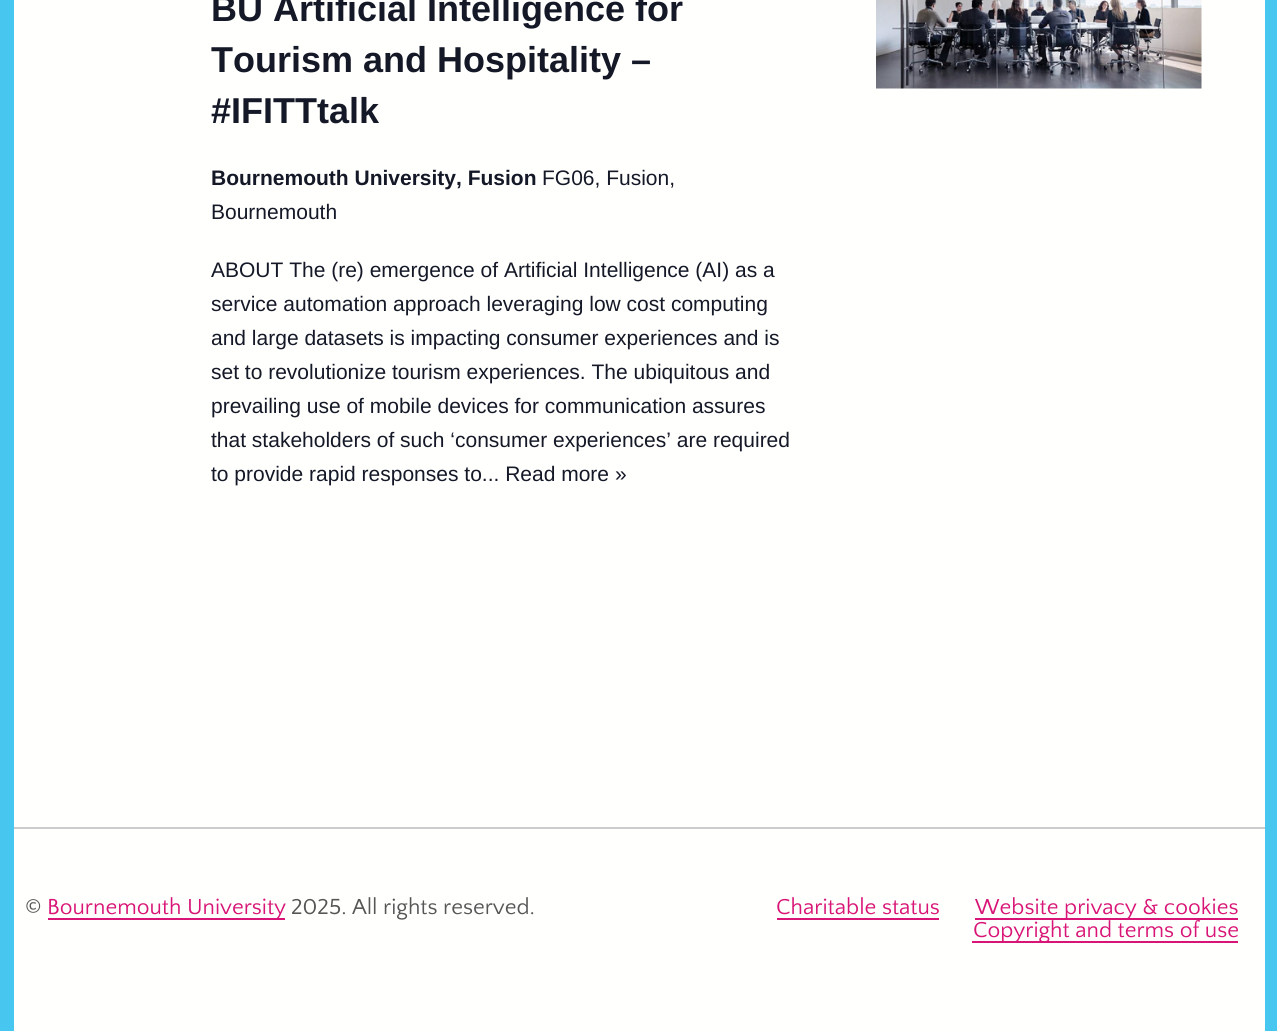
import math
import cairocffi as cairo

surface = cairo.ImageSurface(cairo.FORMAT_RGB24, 1277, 1031)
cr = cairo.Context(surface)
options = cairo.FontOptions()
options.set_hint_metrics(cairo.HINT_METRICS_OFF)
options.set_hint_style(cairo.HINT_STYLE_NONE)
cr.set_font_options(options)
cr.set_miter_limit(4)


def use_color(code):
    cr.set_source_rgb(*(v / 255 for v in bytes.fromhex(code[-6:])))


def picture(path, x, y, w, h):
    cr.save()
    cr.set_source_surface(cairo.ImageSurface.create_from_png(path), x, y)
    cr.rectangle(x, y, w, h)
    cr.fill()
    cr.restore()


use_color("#47c7f0")
cr.paint()
use_color("#fffffd")
cr.rectangle(14, 0, 1251, 827)
cr.fill()
cr.select_font_face("Liberation Sans", cairo.FONT_SLANT_NORMAL, cairo.FONT_WEIGHT_BOLD)
cr.set_font_size(36)
use_color("#141827")
cr.move_to(211, 21)
cr.show_text("BU Artificial Intelligence for")
cr.move_to(211, 72)
cr.show_text("Tourism and Hospitality –")
cr.move_to(211, 123)
cr.show_text("#IFITTtalk")
cr.set_font_size(21)
cr.move_to(211, 185)
cr.show_text("Bournemouth University, Fusion")
cr.select_font_face("Liberation Sans")
cr.move_to(542, 185)
cr.show_text("FG06, Fusion,")
cr.move_to(211, 219)
cr.show_text("Bournemouth")
cr.move_to(211, 277)
cr.show_text("ABOUT The (re) emergence of Artificial Intelligence (AI) as a")
cr.move_to(211, 311)
cr.show_text("service automation approach leveraging low cost computing")
cr.move_to(211, 345)
cr.show_text("and large datasets is impacting consumer experiences and is")
cr.move_to(211, 379)
cr.show_text("set to revolutionize tourism experiences. The ubiquitous and")
cr.move_to(211, 413)
cr.show_text("prevailing use of mobile devices for communication assures")
cr.move_to(211, 447)
cr.show_text("that stakeholders of such ‘consumer experiences’ are required")
cr.move_to(211, 481)
cr.show_text("to provide rapid responses to... Read more »")
picture("img1.png", 876, 0, 326, 89)
use_color("#fffffd")
cr.rectangle(14, 829, 1251, 202)
cr.fill()
use_color("#cccccc")
cr.rectangle(14, 827, 1251, 2)
cr.fill()
cr.select_font_face("Quattrocento Sans")
cr.set_font_size(22.75)
use_color("#565656")
cr.move_to(25, 914)
cr.show_text("©")
use_color("#d81476")
cr.rectangle(48, 918, 237, 2)
cr.fill()
cr.move_to(47, 914)
cr.show_text("Bournemouth University")
use_color("#565656")
cr.move_to(291, 914)
cr.show_text("2025. All rights reserved.")
use_color("#d81476")
cr.move_to(776, 914)
cr.show_text("Charitable status")
cr.rectangle(777, 918, 162, 2)
cr.fill()
cr.rectangle(975, 918, 263, 2)
cr.fill()
cr.move_to(975, 914)
cr.show_text("Website privacy & cookies")
cr.rectangle(972, 941, 266, 2)
cr.fill()
cr.move_to(973, 937)
cr.show_text("Copyright and terms of use")
surface.write_to_png("result.png")
